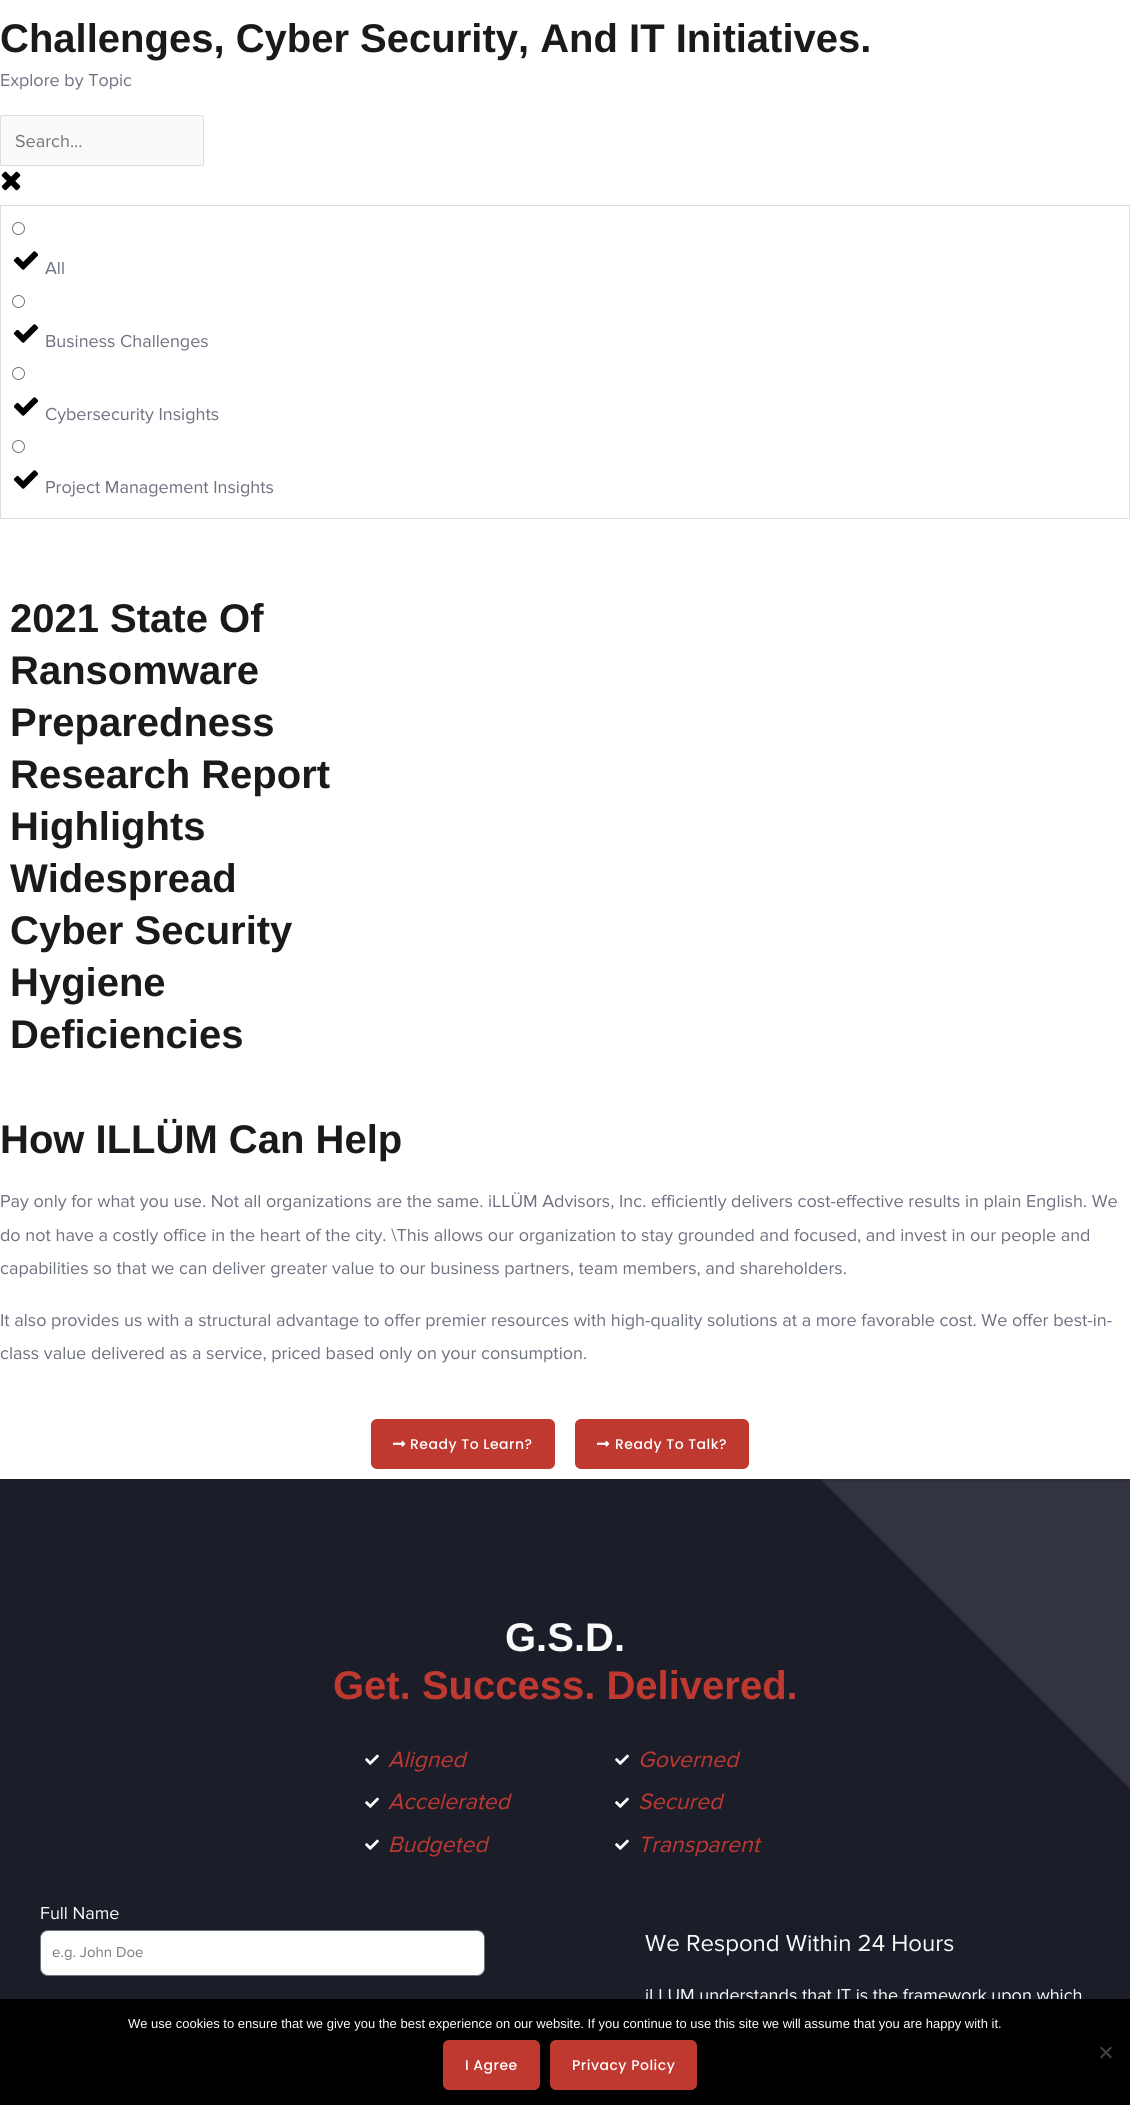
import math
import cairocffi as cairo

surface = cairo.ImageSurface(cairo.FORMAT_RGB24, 1130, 2105)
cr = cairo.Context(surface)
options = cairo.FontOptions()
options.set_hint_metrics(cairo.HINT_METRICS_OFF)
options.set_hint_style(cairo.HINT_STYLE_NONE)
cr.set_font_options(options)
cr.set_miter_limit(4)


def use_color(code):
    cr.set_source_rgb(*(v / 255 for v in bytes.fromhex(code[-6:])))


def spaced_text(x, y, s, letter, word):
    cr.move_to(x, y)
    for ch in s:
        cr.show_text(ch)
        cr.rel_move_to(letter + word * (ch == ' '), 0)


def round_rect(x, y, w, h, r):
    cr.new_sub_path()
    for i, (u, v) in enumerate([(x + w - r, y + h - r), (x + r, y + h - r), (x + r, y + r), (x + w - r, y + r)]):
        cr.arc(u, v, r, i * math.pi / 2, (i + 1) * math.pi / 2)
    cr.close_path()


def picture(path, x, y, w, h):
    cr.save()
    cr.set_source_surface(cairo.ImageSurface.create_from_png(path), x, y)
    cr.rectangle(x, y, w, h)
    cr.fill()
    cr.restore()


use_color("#ffffff")
cr.paint()
cr.select_font_face("Liberation Sans", cairo.FONT_SLANT_NORMAL, cairo.FONT_WEIGHT_BOLD)
cr.set_font_size(40)
use_color("#1a1a1a")
cr.move_to(0, 52)
cr.show_text("Challenges, Cyber Security, And IT Initiatives.")
cr.select_font_face("Proxima Nova")
cr.set_font_size(18)
use_color("#6e7180")
cr.move_to(0, 86)
cr.show_text("Explore by Topic")
use_color("#fafafa")
round_rect(0.5, 115.5, 203, 50, 1.5)
cr.fill_preserve()
use_color("#dddddd")
cr.set_line_width(1)
cr.stroke()
use_color("#757575")
cr.move_to(15, 147)
cr.show_text("Search...")
picture("img1.png", 1, 171, 20, 20)
cr.rectangle(0.5, 205.5, 1129, 313)
use_color("#dddddd")
cr.stroke()
cr.arc(18.5, 228.5, 6, 0, 2 * math.pi)
use_color("#767676")
cr.stroke()
picture("img2.png", 13, 251, 26, 19)
use_color("#6e7180")
cr.move_to(45, 274)
cr.show_text("All")
cr.new_path()
cr.arc(18.5, 301.5, 6, 0, 2 * math.pi)
use_color("#767676")
cr.stroke()
picture("img2.png", 13, 324, 26, 19)
use_color("#6e7180")
cr.move_to(45, 347)
cr.show_text("Business Challenges")
cr.new_path()
cr.arc(18.5, 373.5, 6, 0, 2 * math.pi)
use_color("#767676")
cr.stroke()
picture("img2.png", 13, 397, 26, 19)
use_color("#6e7180")
cr.move_to(45, 420)
cr.show_text("Cybersecurity Insights")
cr.new_path()
cr.arc(18.5, 446.5, 6, 0, 2 * math.pi)
use_color("#767676")
cr.stroke()
picture("img2.png", 13, 470, 26, 19)
use_color("#6e7180")
cr.move_to(45, 493)
cr.show_text("Project Management Insights")
cr.select_font_face("Liberation Sans", cairo.FONT_SLANT_NORMAL, cairo.FONT_WEIGHT_BOLD)
cr.set_font_size(40)
use_color("#1a1a1a")
cr.move_to(10, 632)
cr.show_text("2021 State Of")
cr.move_to(10, 684)
cr.show_text("Ransomware")
cr.move_to(10, 736)
cr.show_text("Preparedness")
cr.move_to(10, 788)
cr.show_text("Research Report")
cr.move_to(10, 840)
cr.show_text("Highlights")
cr.move_to(10, 892)
cr.show_text("Widespread")
cr.move_to(10, 944)
cr.show_text("Cyber Security")
cr.move_to(10, 996)
cr.show_text("Hygiene")
cr.move_to(10, 1048)
cr.show_text("Deficiencies")
cr.move_to(0, 1153)
cr.show_text("How ILLÜM Can Help")
cr.select_font_face("Proxima Nova")
cr.set_font_size(18)
use_color("#6e7180")
cr.move_to(0, 1207)
cr.show_text("Pay only for what you use. Not all organizations are the same. iLLÜM Advisors, Inc. efficiently delivers cost-effective results in plain English. We")
cr.move_to(0, 1241)
cr.show_text("do not have a costly office in the heart of the city. \\This allows our organization to stay grounded and focused, and invest in our people and")
cr.move_to(0, 1274)
cr.show_text("capabilities so that we can deliver greater value to our business partners, team members, and shareholders.")
cr.move_to(0, 1326)
cr.show_text("It also provides us with a structural advantage to offer premier resources with high-quality solutions at a more favorable cost. We offer best-in-")
cr.move_to(0, 1359)
cr.show_text("class value delivered as a service, priced based only on your consumption.")
use_color("#c03931")
round_rect(371, 1419, 184, 50, 6)
cr.fill()
picture("img3.png", 393, 1440, 13, 7)
cr.select_font_face("Poppins Medium")
cr.set_font_size(14)
use_color("#ffffff")
spaced_text(410, 1449, "Ready To Learn?", 0.5, 0)
use_color("#c03931")
round_rect(575, 1419, 174, 50, 6)
cr.fill()
picture("img3.png", 597, 1440, 13, 7)
use_color("#ffffff")
spaced_text(615, 1449, "Ready To Talk?", 0.5, 0)
use_color("#1b1d29")
cr.rectangle(0, 1479, 1130, 520)
cr.fill()
picture("img4.png", 821, 1479, 309, 310)
cr.select_font_face("Liberation Sans", cairo.FONT_SLANT_NORMAL, cairo.FONT_WEIGHT_BOLD)
cr.set_font_size(40)
use_color("#f9faf9")
cr.move_to(505, 1651)
cr.show_text("G.S.D.")
use_color("#c03931")
cr.move_to(333, 1699)
cr.show_text("Get. Success. Delivered.")
picture("img5.png", 365, 1754, 14, 11)
cr.select_font_face("Proxima Nova", cairo.FONT_SLANT_ITALIC)
cr.set_font_size(23)
cr.move_to(388, 1767)
cr.show_text("Aligned")
picture("img5.png", 365, 1797, 14, 11)
cr.move_to(388, 1809)
cr.show_text("Accelerated")
picture("img5.png", 365, 1839, 14, 11)
cr.move_to(388, 1852)
cr.show_text("Budgeted")
picture("img5.png", 615, 1754, 14, 11)
cr.move_to(638, 1767)
cr.show_text("Governed")
picture("img5.png", 615, 1797, 14, 11)
cr.move_to(638, 1809)
cr.show_text("Secured")
picture("img5.png", 615, 1839, 14, 11)
cr.move_to(638, 1852)
cr.show_text("Transparent")
cr.select_font_face("Proxima Nova")
cr.set_font_size(18)
use_color("#f9faf9")
cr.move_to(40, 1919)
cr.show_text("Full Name")
use_color("#ffffff")
round_rect(40.5, 1930.5, 444, 45, 7.5)
cr.fill_preserve()
use_color("#69727d")
cr.stroke()
cr.set_font_size(15)
use_color("#797a7c")
cr.move_to(52, 1957)
cr.show_text("e.g. John Doe")
cr.set_font_size(24)
use_color("#f9faf9")
cr.move_to(645, 1951)
cr.show_text("We Respond Within 24 Hours")
cr.set_font_size(18)
cr.move_to(645, 2001)
cr.show_text("iLLUM understands that IT is the framework upon which")
use_color("#000000")
cr.rectangle(0, 1999, 1130, 106)
cr.fill()
cr.select_font_face("Liberation Sans")
cr.set_font_size(13)
use_color("#ffffff")
cr.move_to(128, 2028)
cr.show_text("We use cookies to ensure that we give you the best experience on our website. If you continue to use this site we will assume that you are happy with it.")
use_color("#404040")
cr.new_path()
cr.move_to(1110.5, 2046.5)
cr.line_to(1112, 2048)
cr.line_to(1101.5, 2058.5)
cr.line_to(1100, 2057)
cr.close_path()
cr.fill()
cr.new_path()
cr.move_to(1100, 2048)
cr.line_to(1101.5, 2046.5)
cr.line_to(1112, 2057)
cr.line_to(1110.5, 2058.5)
cr.close_path()
cr.fill()
use_color("#c03931")
round_rect(443, 2040, 97, 50, 6)
cr.fill()
cr.select_font_face("Poppins Medium")
cr.set_font_size(14)
use_color("#ffffff")
spaced_text(465, 2070, "I Agree", 0.5, 0)
use_color("#c03931")
round_rect(550, 2040, 147, 50, 6)
cr.fill()
use_color("#ffffff")
spaced_text(572, 2070, "Privacy Policy", 0.5, 0)
surface.write_to_png("result.png")
